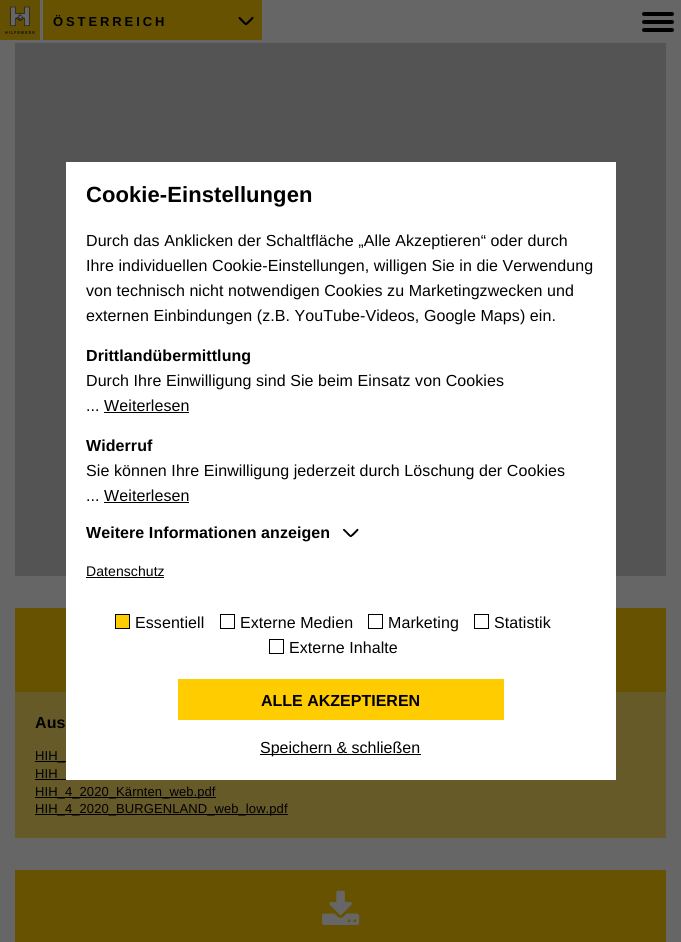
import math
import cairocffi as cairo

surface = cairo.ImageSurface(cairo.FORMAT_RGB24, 681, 942)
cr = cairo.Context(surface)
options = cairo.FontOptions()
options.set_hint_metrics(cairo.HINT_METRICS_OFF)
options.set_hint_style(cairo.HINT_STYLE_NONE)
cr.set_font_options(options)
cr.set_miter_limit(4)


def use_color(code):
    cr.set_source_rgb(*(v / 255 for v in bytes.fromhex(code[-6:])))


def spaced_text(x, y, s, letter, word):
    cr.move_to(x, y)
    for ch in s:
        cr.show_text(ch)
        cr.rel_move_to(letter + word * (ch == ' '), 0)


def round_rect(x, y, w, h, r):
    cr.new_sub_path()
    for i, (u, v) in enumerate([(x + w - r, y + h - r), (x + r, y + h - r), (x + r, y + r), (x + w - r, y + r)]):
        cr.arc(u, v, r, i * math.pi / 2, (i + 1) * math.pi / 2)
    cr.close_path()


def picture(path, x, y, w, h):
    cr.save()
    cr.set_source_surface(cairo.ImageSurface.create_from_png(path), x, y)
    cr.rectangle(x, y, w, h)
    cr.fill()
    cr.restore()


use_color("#666666")
cr.paint()
picture("img1.png", 0, 0, 40, 40)
use_color("#665200")
cr.rectangle(43, 0, 219, 40)
cr.fill()
cr.select_font_face("Liberation Sans", cairo.FONT_SLANT_NORMAL, cairo.FONT_WEIGHT_BOLD)
cr.set_font_size(13)
use_color("#000000")
spaced_text(53, 26, "ÖSTERREICH", 2.9, 0)
cr.new_path()
cr.move_to(240, 17)
cr.line_to(246.5, 23.5)
cr.curve_to(247, 24, 246.5, 25, 246, 25)
cr.curve_to(245, 25.5, 241.5, 21.5, 240.5, 20.5)
cr.curve_to(239.5, 19.5, 237, 17, 239.5, 17)
cr.close_path()
cr.fill()
cr.new_path()
cr.move_to(245.5, 23.5)
cr.line_to(252, 17)
cr.curve_to(252.5, 16.5, 253.5, 17, 253.5, 17.5)
cr.curve_to(254, 18.5, 250, 22, 249, 23)
cr.curve_to(248, 24, 245.5, 26.5, 245.5, 24)
cr.close_path()
cr.fill()
round_rect(642, 12, 32, 4, 2)
cr.fill()
round_rect(642, 20, 32, 4, 2)
cr.fill()
round_rect(642, 28, 32, 4, 2)
cr.fill()
use_color("#545454")
cr.rectangle(15, 43, 651, 533)
cr.fill()
use_color("#665a29")
cr.rectangle(15, 692, 651, 146)
cr.fill()
use_color("#665200")
cr.rectangle(15, 608, 651, 84)
cr.fill()
cr.set_font_size(16)
use_color("#000000")
spaced_text(35, 728, "Aus", 0.08, 0)
cr.rectangle(35, 761, 31, 1)
cr.fill()
cr.select_font_face("Liberation Sans")
cr.set_font_size(13)
spaced_text(35, 760, "HIH_", 0.08, 0)
spaced_text(35, 778, "HIH", 0.08, 0)
cr.rectangle(35, 779, 31, 1)
cr.fill()
cr.rectangle(35, 797, 181, 1)
cr.fill()
spaced_text(35, 796, "HIH_4_2020_Kärnten_web.pdf", 0.08, 0)
cr.rectangle(35, 814, 253, 1)
cr.fill()
spaced_text(35, 813, "HIH_4_2020_BURGENLAND_web_low.pdf", 0.08, 0)
use_color("#665200")
cr.rectangle(15, 870, 651, 72)
cr.fill()
picture("img2.png", 322, 890, 38, 35)
use_color("#ffffff")
cr.rectangle(66, 162, 550, 618)
cr.fill()
cr.select_font_face("Liberation Sans", cairo.FONT_SLANT_NORMAL, cairo.FONT_WEIGHT_BOLD)
cr.set_font_size(22)
use_color("#000000")
spaced_text(86, 202, "Cookie-Einstellungen", 0.08, 0)
cr.select_font_face("Liberation Sans")
cr.set_font_size(16)
spaced_text(86, 246, "Durch das Anklicken der Schaltfläche „Alle Akzeptieren“ oder durch", 0.08, 0)
spaced_text(86, 271, "Ihre individuellen Cookie-Einstellungen, willigen Sie in die Verwendung", 0.08, 0)
spaced_text(86, 296, "von technisch nicht notwendigen Cookies zu Marketingzwecken und", 0.08, 0)
spaced_text(86, 321, "externen Einbindungen (z.B. YouTube-Videos, Google Maps) ein.", 0.08, 0)
cr.select_font_face("Liberation Sans", cairo.FONT_SLANT_NORMAL, cairo.FONT_WEIGHT_BOLD)
spaced_text(86, 361, "Drittlandübermittlung", 0.08, 0)
cr.select_font_face("Liberation Sans")
spaced_text(86, 386, "Durch Ihre Einwilligung sind Sie beim Einsatz von Cookies", 0.08, 0)
spaced_text(86, 411, "... Weiterlesen", 0.08, 0)
cr.rectangle(99, 412, 90, 1)
cr.fill()
use_color("#ffffff")
cr.rectangle(99, 412, 5, 1)
cr.fill()
cr.select_font_face("Liberation Sans", cairo.FONT_SLANT_NORMAL, cairo.FONT_WEIGHT_BOLD)
use_color("#000000")
spaced_text(86, 451, "Widerruf", 0.08, 0)
cr.select_font_face("Liberation Sans")
spaced_text(86, 476, "Sie können Ihre Einwilligung jederzeit durch Löschung der Cookies", 0.08, 0)
spaced_text(86, 501, "... Weiterlesen", 0.08, 0)
cr.rectangle(99, 502, 90, 1)
cr.fill()
use_color("#ffffff")
cr.rectangle(99, 502, 5, 1)
cr.fill()
cr.select_font_face("Liberation Sans", cairo.FONT_SLANT_NORMAL, cairo.FONT_WEIGHT_BOLD)
use_color("#000000")
spaced_text(86, 538, "Weitere Informationen anzeigen", 0.08, 0)
cr.new_path()
cr.move_to(344.5, 529)
cr.line_to(351, 535.5)
cr.curve_to(351.5, 536, 351.5, 537, 351, 537)
cr.curve_to(349.5, 537.5, 346.5, 533.5, 345.5, 532.5)
cr.curve_to(344, 531.5, 341.5, 529, 344, 529)
cr.close_path()
cr.fill()
cr.new_path()
cr.move_to(350.5, 535.5)
cr.line_to(357, 529)
cr.curve_to(357.5, 528.5, 358, 529, 358.5, 529.5)
cr.curve_to(359, 530.5, 354.5, 534, 354, 535)
cr.curve_to(352.5, 536, 350, 538.5, 350, 536)
cr.close_path()
cr.fill()
cr.select_font_face("Liberation Sans")
cr.set_font_size(14)
spaced_text(86, 576, "Datenschutz", 0.08, 0)
cr.rectangle(86, 577, 78, 1)
cr.fill()
use_color("#ffcc00")
cr.rectangle(115.5, 614.5, 14, 14)
cr.fill_preserve()
use_color("#000000")
cr.set_line_width(1)
cr.stroke()
cr.set_font_size(16)
spaced_text(135, 628, "Essentiell", 0.08, 0)
cr.rectangle(220.5, 614.5, 14, 14)
cr.stroke()
spaced_text(240, 628, "Externe Medien", 0.08, 0)
cr.rectangle(368.5, 614.5, 14, 14)
cr.stroke()
spaced_text(388, 628, "Marketing", 0.08, 0)
cr.rectangle(474.5, 614.5, 14, 14)
cr.stroke()
spaced_text(494, 628, "Statistik", 0.08, 0)
cr.rectangle(269.5, 639.5, 14, 14)
cr.stroke()
spaced_text(289, 653, "Externe Inhalte", 0.08, 0)
use_color("#ffcc00")
cr.rectangle(178, 679, 326, 41)
cr.fill()
cr.select_font_face("Liberation Sans", cairo.FONT_SLANT_NORMAL, cairo.FONT_WEIGHT_BOLD)
use_color("#000000")
cr.move_to(261, 706)
cr.show_text("ALLE AKZEPTIEREN")
cr.rectangle(260, 754, 161, 1)
cr.fill()
cr.select_font_face("Liberation Sans")
cr.move_to(260, 753)
cr.show_text("Speichern & schließen")
surface.write_to_png("result.png")
